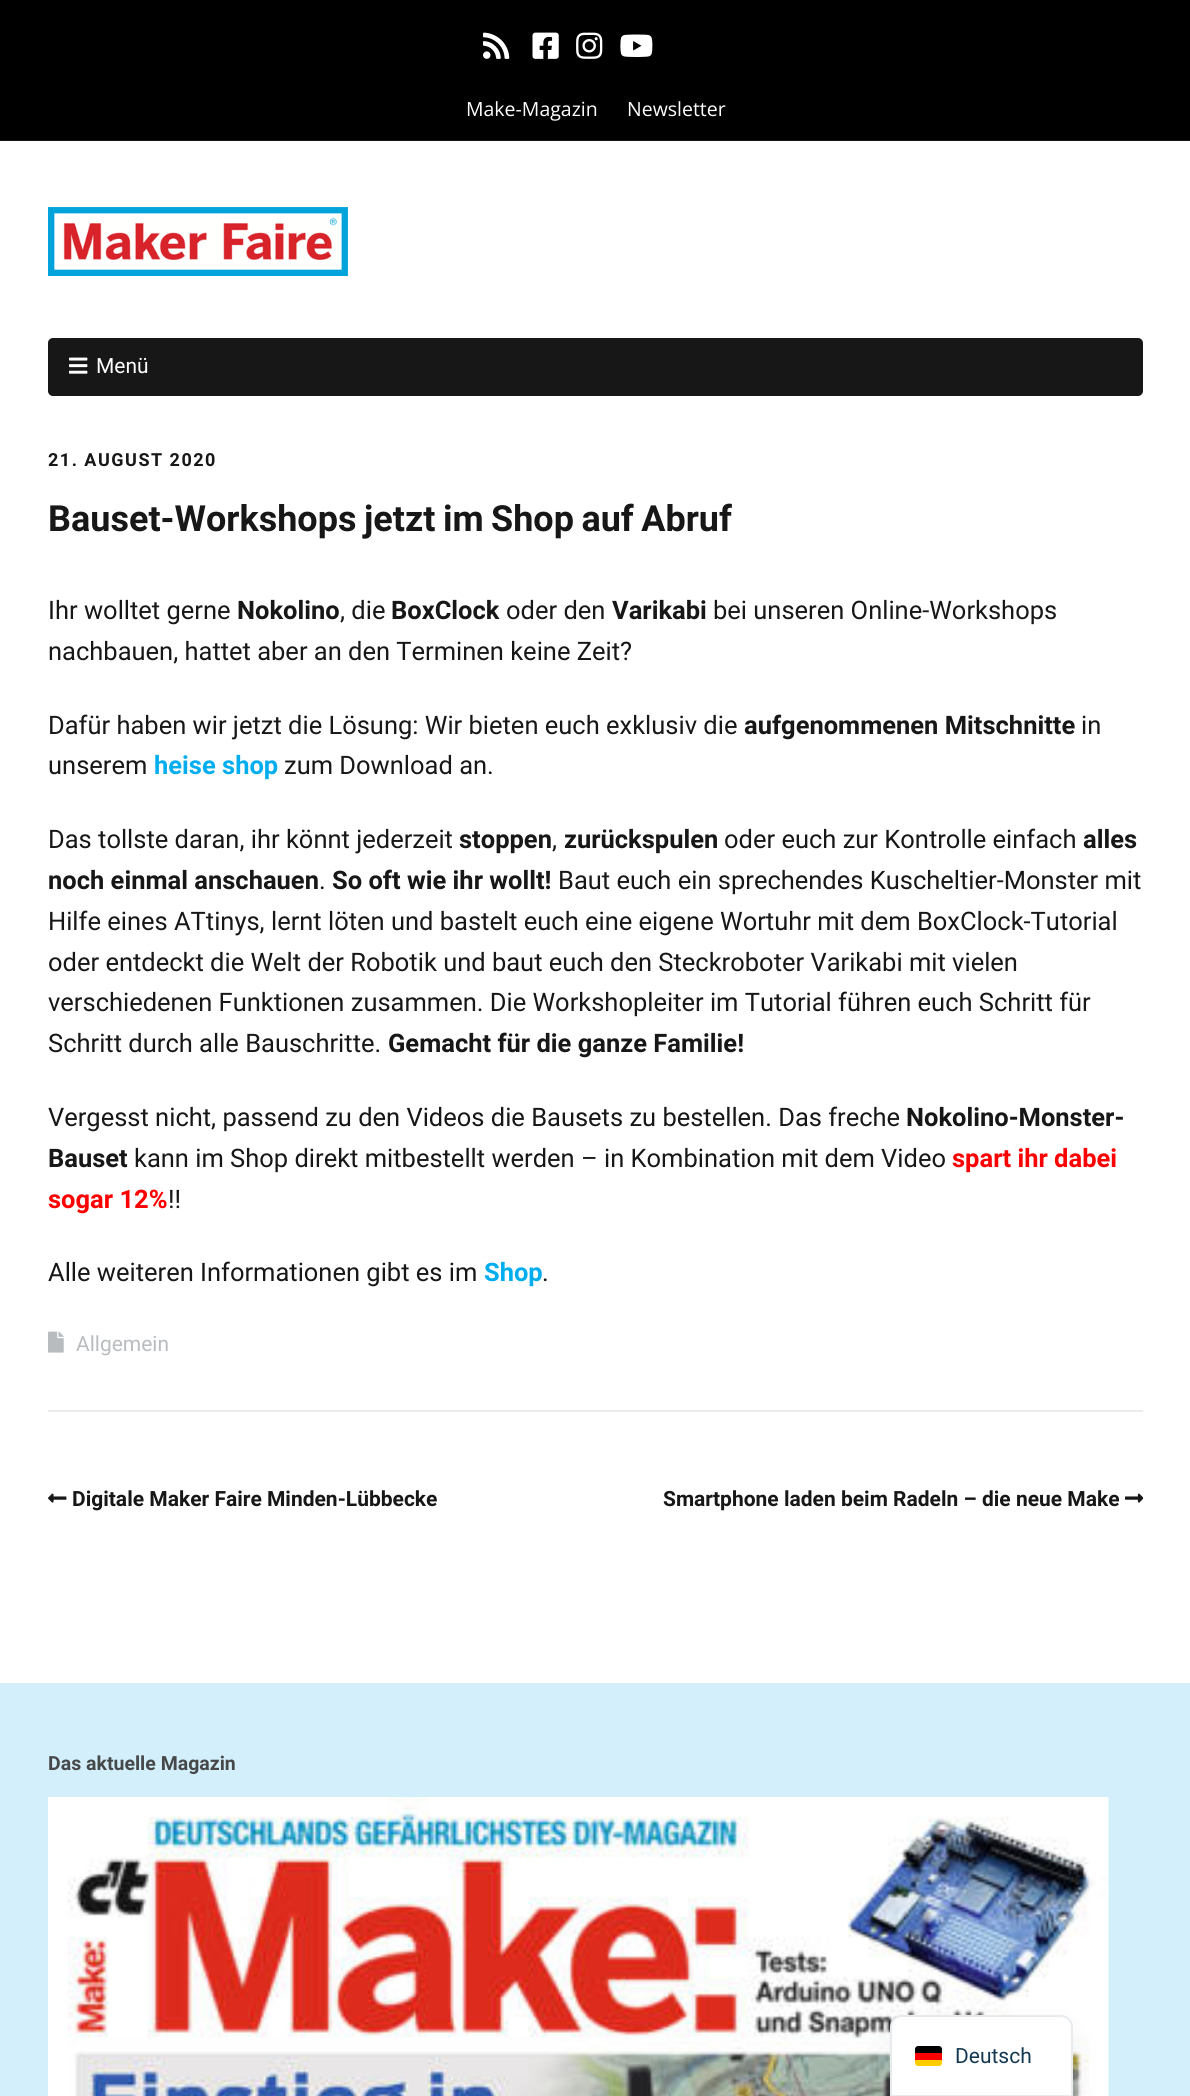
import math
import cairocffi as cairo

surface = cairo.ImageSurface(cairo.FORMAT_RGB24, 1190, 2096)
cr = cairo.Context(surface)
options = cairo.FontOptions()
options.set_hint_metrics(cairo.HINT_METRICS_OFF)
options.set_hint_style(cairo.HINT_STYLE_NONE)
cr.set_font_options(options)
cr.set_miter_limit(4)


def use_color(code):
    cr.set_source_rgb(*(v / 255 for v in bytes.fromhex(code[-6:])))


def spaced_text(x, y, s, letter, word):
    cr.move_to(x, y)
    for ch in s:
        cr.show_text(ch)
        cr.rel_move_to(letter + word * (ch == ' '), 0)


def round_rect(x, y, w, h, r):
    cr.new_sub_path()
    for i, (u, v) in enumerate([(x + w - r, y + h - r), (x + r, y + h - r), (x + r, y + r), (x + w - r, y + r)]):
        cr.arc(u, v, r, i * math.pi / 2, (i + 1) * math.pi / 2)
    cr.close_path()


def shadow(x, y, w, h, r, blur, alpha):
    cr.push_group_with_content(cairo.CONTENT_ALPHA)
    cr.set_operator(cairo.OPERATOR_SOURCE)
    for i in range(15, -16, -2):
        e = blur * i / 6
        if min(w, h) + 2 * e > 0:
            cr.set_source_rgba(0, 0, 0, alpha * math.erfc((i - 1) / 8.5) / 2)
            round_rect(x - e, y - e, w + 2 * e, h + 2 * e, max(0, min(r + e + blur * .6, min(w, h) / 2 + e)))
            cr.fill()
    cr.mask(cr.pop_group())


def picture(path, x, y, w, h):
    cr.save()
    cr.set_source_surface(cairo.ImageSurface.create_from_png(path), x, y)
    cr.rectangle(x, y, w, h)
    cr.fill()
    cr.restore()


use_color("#ffffff")
cr.paint()
use_color("#000000")
cr.rectangle(0, 0, 1190, 140)
cr.fill()
use_color("#171717")
cr.rectangle(0, 140, 1190, 1)
cr.fill()
picture("img1.png", 483, 32, 27, 27)
picture("img2.png", 532, 32, 27, 27)
picture("img3.png", 576, 32, 27, 27)
picture("img4.png", 620, 34, 33, 23)
cr.select_font_face("Open Sans")
cr.set_font_size(19.5)
use_color("#ffffff")
cr.move_to(466, 116)
cr.show_text("Make-Magazin")
cr.move_to(627, 116)
cr.show_text("Newsletter")
picture("img5.png", 48, 207, 300, 69)
use_color("#171717")
round_rect(48, 338, 1095, 58, 5)
cr.fill()
picture("img6.png", 69, 357, 19, 17)
cr.select_font_face("Roboto")
cr.set_font_size(21)
use_color("#ffffff")
cr.move_to(96, 373)
cr.show_text("Menü")
use_color("#eaecee")
cr.rectangle(48, 1410, 1095, 2)
cr.fill()
cr.select_font_face("Roboto", cairo.FONT_SLANT_NORMAL, cairo.FONT_WEIGHT_BOLD)
cr.set_font_size(18)
use_color("#171717")
spaced_text(48, 466, "21. AUGUST 2020", 1.5, 0)
cr.set_font_size(36)
spaced_text(48, 531, "Bauset-Workshops jetzt im Shop auf Abruf", 0, -1.5)
cr.select_font_face("Roboto")
cr.set_font_size(25.5)
cr.move_to(48, 619)
cr.show_text("Ihr wolltet gerne")
cr.select_font_face("Roboto", cairo.FONT_SLANT_NORMAL, cairo.FONT_WEIGHT_BOLD)
cr.move_to(237, 619)
cr.show_text("Nokolino")
cr.select_font_face("Roboto")
cr.move_to(340, 619)
cr.show_text(", die")
cr.select_font_face("Roboto", cairo.FONT_SLANT_NORMAL, cairo.FONT_WEIGHT_BOLD)
cr.move_to(391, 619)
cr.show_text("BoxClock")
cr.select_font_face("Roboto")
cr.move_to(506, 619)
cr.show_text("oder den")
cr.select_font_face("Roboto", cairo.FONT_SLANT_NORMAL, cairo.FONT_WEIGHT_BOLD)
cr.move_to(612, 619)
cr.show_text("Varikabi")
cr.select_font_face("Roboto")
cr.move_to(713, 619)
cr.show_text("bei unseren Online-Workshops")
cr.move_to(48, 660)
cr.show_text("nachbauen, hattet aber an den Terminen keine Zeit?")
cr.move_to(48, 734)
cr.show_text("Dafür haben wir jetzt die Lösung: Wir bieten euch exklusiv die")
cr.select_font_face("Roboto", cairo.FONT_SLANT_NORMAL, cairo.FONT_WEIGHT_BOLD)
cr.move_to(744, 734)
cr.show_text("aufgenommenen Mitschnitte")
cr.select_font_face("Roboto")
cr.move_to(1081, 734)
cr.show_text("in")
cr.move_to(48, 774)
cr.show_text("unserem")
cr.select_font_face("Roboto", cairo.FONT_SLANT_NORMAL, cairo.FONT_WEIGHT_BOLD)
use_color("#00aeef")
cr.move_to(154, 774)
cr.show_text("heise shop")
cr.select_font_face("Roboto")
use_color("#171717")
cr.move_to(284, 774)
cr.show_text("zum Download an.")
cr.move_to(48, 848)
cr.show_text("Das tollste daran, ihr könnt jederzeit")
cr.select_font_face("Roboto", cairo.FONT_SLANT_NORMAL, cairo.FONT_WEIGHT_BOLD)
cr.move_to(459, 848)
cr.show_text("stoppen")
cr.select_font_face("Roboto")
cr.move_to(552, 848)
cr.show_text(",")
cr.select_font_face("Roboto", cairo.FONT_SLANT_NORMAL, cairo.FONT_WEIGHT_BOLD)
cr.move_to(564, 848)
cr.show_text("zurückspulen")
cr.select_font_face("Roboto")
cr.move_to(724, 848)
cr.show_text("oder euch zur Kontrolle einfach")
cr.select_font_face("Roboto", cairo.FONT_SLANT_NORMAL, cairo.FONT_WEIGHT_BOLD)
cr.move_to(1083, 848)
cr.show_text("alles")
cr.move_to(48, 889)
cr.show_text("noch einmal anschauen")
cr.select_font_face("Roboto")
cr.move_to(319, 889)
cr.show_text(".")
cr.select_font_face("Roboto", cairo.FONT_SLANT_NORMAL, cairo.FONT_WEIGHT_BOLD)
cr.move_to(332, 889)
cr.show_text("So oft wie ihr wollt!")
cr.select_font_face("Roboto")
cr.move_to(558, 889)
cr.show_text("Baut euch ein sprechendes Kuscheltier-Monster mit")
cr.move_to(48, 930)
cr.show_text("Hilfe eines ATtinys, lernt löten und bastelt euch eine eigene Wortuhr mit dem BoxClock-Tutorial")
cr.move_to(48, 971)
cr.show_text("oder entdeckt die Welt der Robotik und baut euch den Steckroboter Varikabi mit vielen")
cr.move_to(48, 1011)
cr.show_text("verschiedenen Funktionen zusammen. Die Workshopleiter im Tutorial führen euch Schritt für")
cr.move_to(48, 1052)
cr.show_text("Schritt durch alle Bauschritte.")
cr.select_font_face("Roboto", cairo.FONT_SLANT_NORMAL, cairo.FONT_WEIGHT_BOLD)
cr.move_to(388, 1052)
cr.show_text("Gemacht für die ganze Familie!")
cr.select_font_face("Roboto")
cr.move_to(48, 1126)
cr.show_text("Vergesst nicht, passend zu den Videos die Bausets zu bestellen. Das freche")
cr.select_font_face("Roboto", cairo.FONT_SLANT_NORMAL, cairo.FONT_WEIGHT_BOLD)
cr.move_to(906, 1126)
cr.show_text("Nokolino-Monster-")
cr.move_to(48, 1167)
cr.show_text("Bauset")
cr.select_font_face("Roboto")
cr.move_to(134, 1167)
cr.show_text("kann im Shop direkt mitbestellt werden – in Kombination mit dem Video")
cr.select_font_face("Roboto", cairo.FONT_SLANT_NORMAL, cairo.FONT_WEIGHT_BOLD)
use_color("#ff0000")
cr.move_to(952, 1167)
cr.show_text("spart ihr dabei")
cr.move_to(48, 1208)
cr.show_text("sogar 12%")
cr.select_font_face("Roboto")
use_color("#171717")
cr.move_to(168, 1208)
cr.show_text("!!")
cr.move_to(48, 1281)
cr.show_text("Alle weiteren Informationen gibt es im")
cr.select_font_face("Roboto", cairo.FONT_SLANT_NORMAL, cairo.FONT_WEIGHT_BOLD)
use_color("#00aeef")
cr.move_to(484, 1281)
cr.show_text("Shop")
cr.select_font_face("Roboto")
use_color("#171717")
cr.move_to(542, 1281)
cr.show_text(".")
picture("img7.png", 48, 1331, 16, 22)
cr.set_font_size(21)
use_color("#b9bcbf")
cr.move_to(76, 1351)
cr.show_text("Allgemein")
picture("img8.png", 48, 1493, 19, 10)
cr.select_font_face("Roboto", cairo.FONT_SLANT_NORMAL, cairo.FONT_WEIGHT_BOLD)
use_color("#171717")
cr.move_to(72, 1506)
cr.show_text("Digitale Maker Faire Minden-Lübbecke")
cr.move_to(663, 1506)
cr.show_text("Smartphone laden beim Radeln – die neue Make")
picture("img9.png", 1125, 1493, 18, 10)
use_color("#d4effc")
cr.rectangle(0, 1683, 1190, 413)
cr.fill()
cr.set_font_size(19.5)
use_color("#464849")
cr.move_to(48, 1770)
cr.show_text("Das aktuelle Magazin")
picture("img10.png", 48, 1797, 1061, 299)
use_color("#000000")
shadow(890, 2030, 183, 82, 12, 15, 0.05)
use_color("#ffffff")
cr.new_path()
cr.move_to(902, 2015)
cr.line_to(1061, 2015)
cr.curve_to(1067.5, 2015, 1073, 2020.5, 1073, 2027)
cr.line_to(1073, 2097)
cr.line_to(890, 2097)
cr.line_to(890, 2027)
cr.curve_to(890, 2020.5, 895.5, 2015, 902, 2015)
cr.close_path()
cr.fill()
cr.new_path()
cr.move_to(902, 2016)
cr.line_to(1061, 2016)
cr.curve_to(1067, 2016, 1072, 2021, 1072, 2027)
cr.line_to(1072, 2096)
cr.line_to(891, 2096)
cr.line_to(891, 2027)
cr.curve_to(891, 2021, 896, 2016, 902, 2016)
cr.close_path()
cr.set_source_rgba(0.078, 0.22, 0.322, 0.1)
cr.stroke()
use_color("#ffcc00")
cr.new_path()
cr.move_to(915, 2060)
cr.line_to(942, 2060)
cr.line_to(942, 2063)
cr.curve_to(942, 2064.5, 940.5, 2066, 939, 2066)
cr.line_to(918, 2066)
cr.curve_to(916.5, 2066, 915, 2064.5, 915, 2063)
cr.close_path()
cr.fill()
use_color("#000001")
cr.new_path()
cr.move_to(918, 2046)
cr.line_to(939, 2046)
cr.curve_to(940.5, 2046, 942, 2047.5, 942, 2049)
cr.line_to(942, 2053)
cr.line_to(915, 2053)
cr.line_to(915, 2049)
cr.curve_to(915, 2047.5, 916.5, 2046, 918, 2046)
cr.close_path()
cr.fill()
use_color("#ff0000")
cr.rectangle(915, 2053, 27, 7)
cr.fill()
cr.select_font_face("Roboto")
cr.set_font_size(21)
use_color("#143852")
cr.move_to(955, 2063)
cr.show_text("Deutsch")
surface.write_to_png("result.png")
